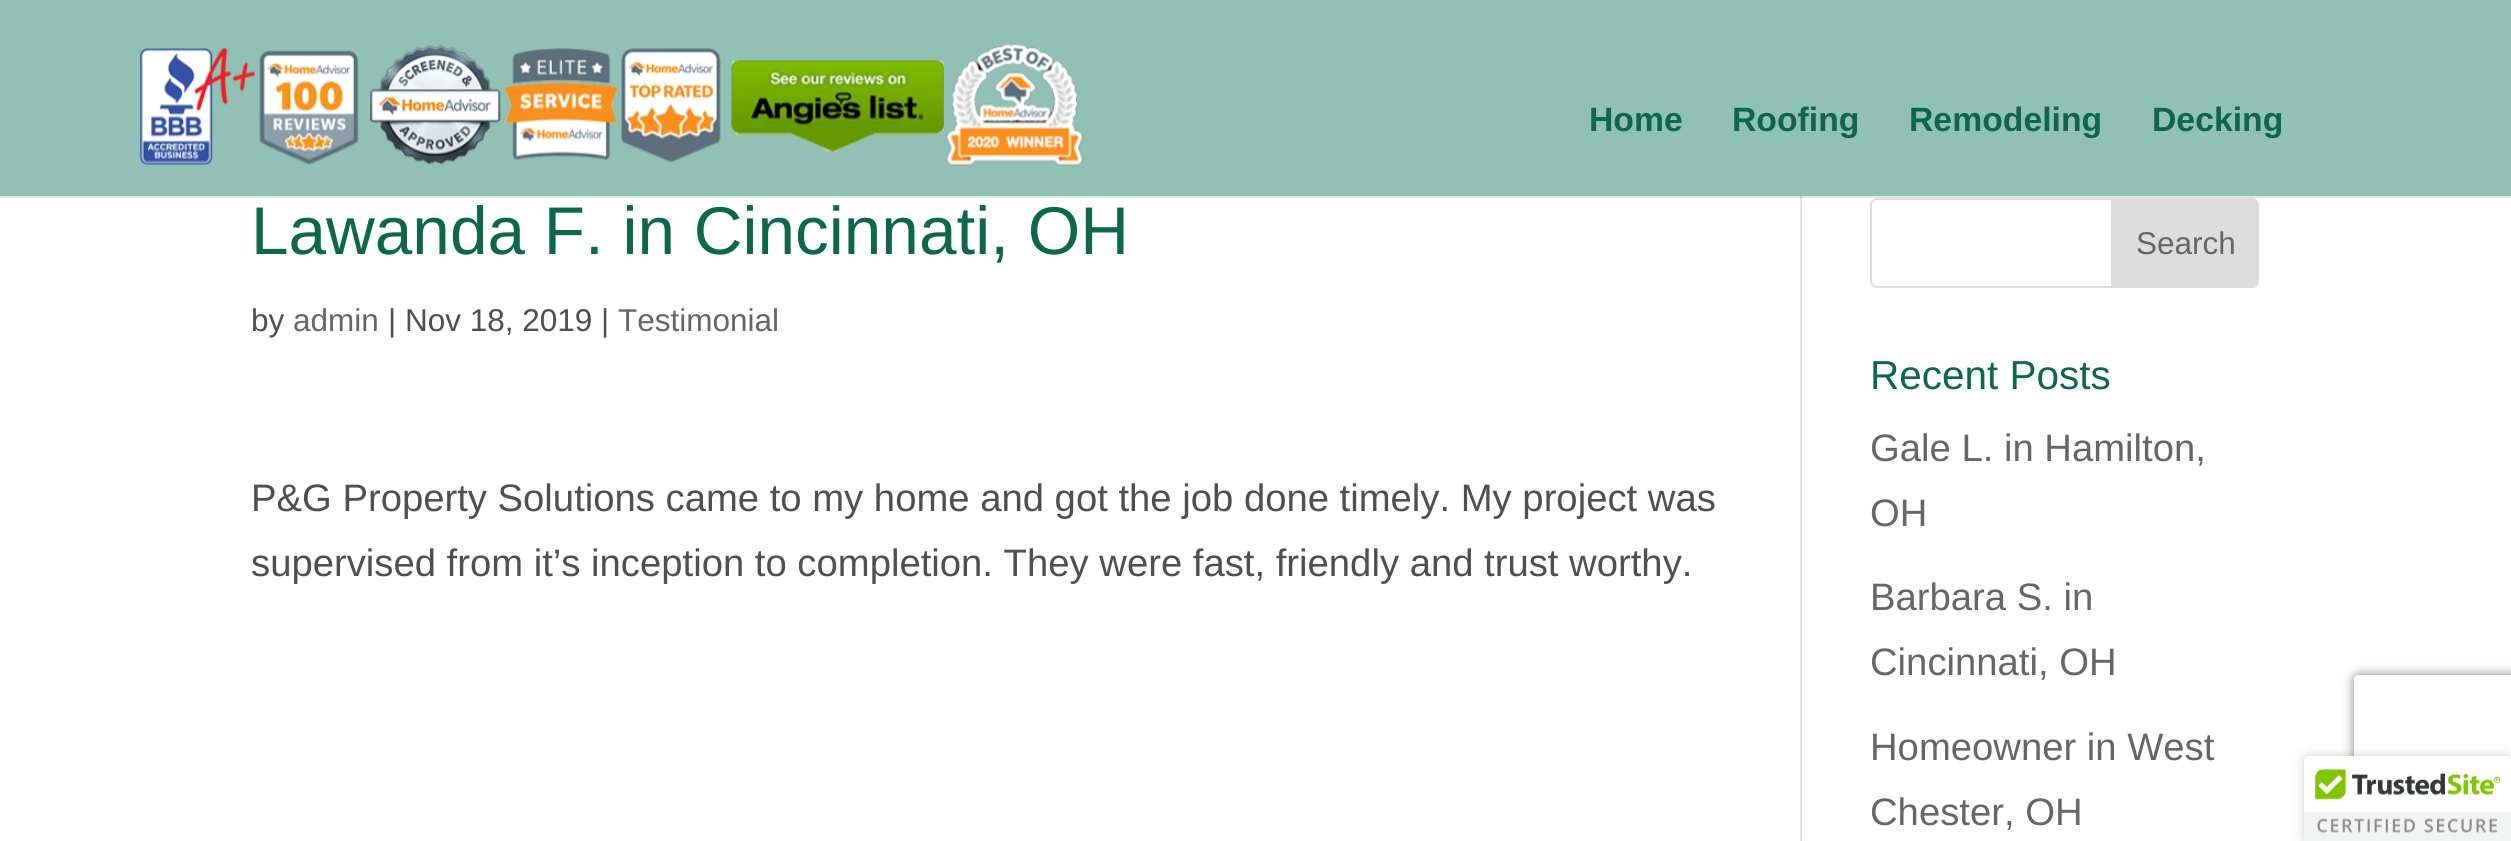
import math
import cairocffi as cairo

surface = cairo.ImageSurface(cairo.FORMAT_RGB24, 2511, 841)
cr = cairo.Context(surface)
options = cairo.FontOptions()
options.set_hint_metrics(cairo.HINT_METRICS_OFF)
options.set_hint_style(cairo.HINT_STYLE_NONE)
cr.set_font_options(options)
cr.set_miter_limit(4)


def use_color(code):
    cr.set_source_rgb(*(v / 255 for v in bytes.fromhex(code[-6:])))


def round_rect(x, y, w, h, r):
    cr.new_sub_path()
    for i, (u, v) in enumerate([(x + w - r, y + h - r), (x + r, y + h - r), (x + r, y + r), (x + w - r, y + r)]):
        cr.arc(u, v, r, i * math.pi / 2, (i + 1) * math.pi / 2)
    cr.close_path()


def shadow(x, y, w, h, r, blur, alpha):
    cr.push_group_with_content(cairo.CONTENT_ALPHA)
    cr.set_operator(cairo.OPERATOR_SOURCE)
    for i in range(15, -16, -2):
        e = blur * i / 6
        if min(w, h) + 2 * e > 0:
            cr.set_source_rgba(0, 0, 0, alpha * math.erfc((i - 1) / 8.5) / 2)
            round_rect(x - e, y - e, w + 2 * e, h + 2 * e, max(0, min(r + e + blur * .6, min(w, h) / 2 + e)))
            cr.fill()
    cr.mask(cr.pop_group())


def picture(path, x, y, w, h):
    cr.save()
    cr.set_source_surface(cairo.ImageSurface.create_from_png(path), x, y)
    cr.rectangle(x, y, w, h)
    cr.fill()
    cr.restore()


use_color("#ffffff")
cr.paint()
use_color("#e6e6e6")
cr.rectangle(0, 196, 2511, 2)
cr.fill()
use_color("#91c1b4")
cr.rectangle(0, 0, 2511, 196)
cr.fill()
picture("img1.png", 140, 43, 944, 123)
cr.select_font_face("Liberation Sans", cairo.FONT_SLANT_NORMAL, cairo.FONT_WEIGHT_BOLD)
cr.set_font_size(33.75)
use_color("#0d674b")
cr.move_to(1589, 131)
cr.show_text("Home")
cr.move_to(1732, 131)
cr.show_text("Roofing")
cr.move_to(1909, 131)
cr.show_text("Remodeling")
cr.move_to(2152, 131)
cr.show_text("Decking")
use_color("#e2e2e2")
cr.rectangle(1800, 198, 2, 643)
cr.fill()
use_color("#cbcbcb")
cr.rectangle(1800, 196, 2, 2)
cr.fill()
cr.select_font_face("Liberation Sans")
cr.set_font_size(67.5)
use_color("#0d674b")
cr.move_to(251, 254)
cr.show_text("Lawanda F. in Cincinnati, OH")
cr.set_font_size(31.5)
use_color("#4f4f4f")
cr.move_to(251, 331)
cr.show_text("by")
use_color("#666666")
cr.move_to(293, 331)
cr.show_text("admin")
use_color("#4f4f4f")
cr.move_to(388, 331)
cr.show_text("| Nov 18, 2019 |")
use_color("#666666")
cr.move_to(618, 331)
cr.show_text("Testimonial")
cr.set_font_size(38.25)
use_color("#4f4f4f")
cr.move_to(251, 511)
cr.show_text("P&G Property Solutions came to my home and got the job done timely. My project was")
cr.move_to(251, 576)
cr.show_text("supervised from it’s inception to completion. They were fast, friendly and trust worthy.")
round_rect(1871, 199, 387, 88, 6)
use_color("#dddddd")
cr.stroke()
cr.new_path()
cr.move_to(2112, 199)
cr.line_to(2252, 199)
cr.curve_to(2255.5, 199, 2258, 201.5, 2258, 205)
cr.line_to(2258, 281)
cr.curve_to(2258, 284.5, 2255.5, 287, 2252, 287)
cr.line_to(2112, 287)
cr.close_path()
cr.fill_preserve()
cr.stroke()
cr.set_font_size(31.5)
use_color("#666666")
cr.move_to(2136, 254)
cr.show_text("Search")
cr.set_font_size(40.5)
use_color("#0d674b")
cr.move_to(1870, 389)
cr.show_text("Recent Posts")
cr.set_font_size(38.25)
use_color("#666666")
cr.move_to(1870, 461)
cr.show_text("Gale L. in Hamilton,")
cr.move_to(1870, 526)
cr.show_text("OH")
cr.move_to(1870, 610)
cr.show_text("Barbara S. in")
cr.move_to(1870, 675)
cr.show_text("Cincinnati, OH")
cr.move_to(1870, 760)
cr.show_text("Homeowner in West")
cr.move_to(1870, 825)
cr.show_text("Chester, OH")
cr.save()
cr.set_fill_rule(cairo.FILL_RULE_EVEN_ODD)
cr.new_path()
cr.move_to(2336, 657)
cr.line_to(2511, 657)
cr.line_to(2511, 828)
cr.line_to(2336, 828)
cr.close_path()
cr.move_to(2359, 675)
cr.line_to(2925, 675)
cr.curve_to(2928, 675, 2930, 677, 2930, 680)
cr.line_to(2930, 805)
cr.curve_to(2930, 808, 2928, 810, 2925, 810)
cr.line_to(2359, 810)
cr.curve_to(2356, 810, 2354, 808, 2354, 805)
cr.line_to(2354, 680)
cr.curve_to(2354, 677, 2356, 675, 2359, 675)
cr.close_path()
cr.clip()
use_color("#808080")
shadow(2354, 675, 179, 135, 5, 5.5, 1)
cr.restore()
use_color("#000000")
shadow(2304, 756, 207, 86, 5, 5.5, 0.2)
use_color("#ffffff")
cr.new_path()
cr.move_to(2309, 756)
cr.line_to(2511, 756)
cr.line_to(2511, 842)
cr.line_to(2304, 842)
cr.line_to(2304, 761)
cr.curve_to(2304, 758, 2306, 756, 2309, 756)
cr.close_path()
cr.fill()
picture("img2.png", 2304, 756, 207, 85)
surface.write_to_png("result.png")
